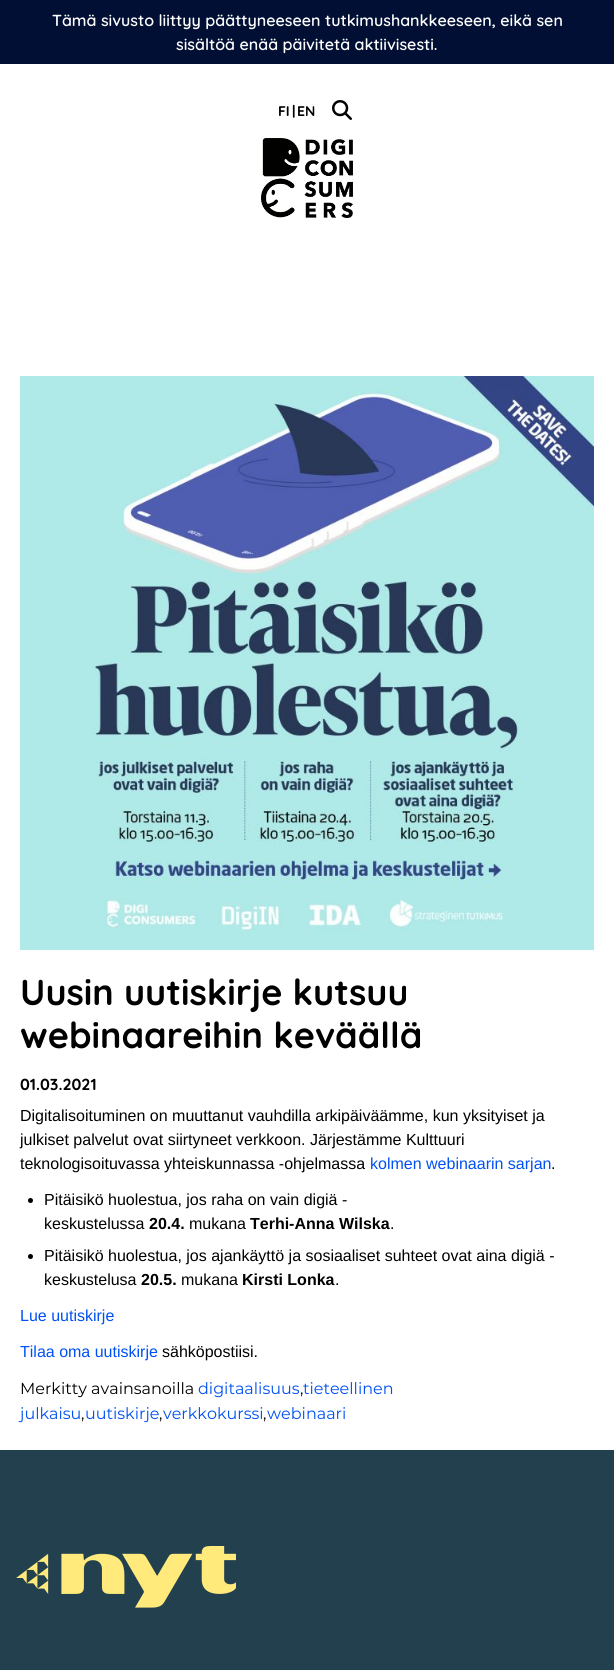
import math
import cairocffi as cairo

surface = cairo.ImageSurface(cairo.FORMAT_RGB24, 614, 1670)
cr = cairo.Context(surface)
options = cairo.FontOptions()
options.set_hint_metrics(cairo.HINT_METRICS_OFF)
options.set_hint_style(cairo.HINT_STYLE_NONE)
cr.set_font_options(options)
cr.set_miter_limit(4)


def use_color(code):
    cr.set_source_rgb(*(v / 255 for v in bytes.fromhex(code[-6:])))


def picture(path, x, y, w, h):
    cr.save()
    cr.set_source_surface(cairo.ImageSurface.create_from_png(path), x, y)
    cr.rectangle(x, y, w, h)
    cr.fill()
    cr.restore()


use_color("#ffffff")
cr.paint()
use_color("#000f33")
cr.rectangle(0, 0, 614, 64)
cr.fill()
cr.select_font_face("Quicksand SemiBold")
cr.set_font_size(16)
use_color("#ffffff")
cr.move_to(52, 26)
cr.show_text("Tämä sivusto liittyy päättyneeseen tutkimushankkeeseen, eikä sen")
cr.move_to(176, 50)
cr.show_text("sisältöä enää päivitetä aktiivisesti.")
cr.select_font_face("Quicksand", cairo.FONT_SLANT_NORMAL, cairo.FONT_WEIGHT_BOLD)
cr.set_font_size(14)
use_color("#000000")
cr.move_to(278, 116)
cr.show_text("FI")
cr.move_to(292, 116)
cr.show_text("|")
cr.move_to(297, 116)
cr.show_text("EN")
picture("img1.png", 332, 100, 20, 20)
picture("img2.png", 261, 138, 92, 80)
picture("img3.png", 20, 376, 574, 574)
cr.set_font_size(36)
cr.move_to(20, 1005)
cr.show_text("Uusin uutiskirje kutsuu")
cr.move_to(20, 1048)
cr.show_text("webinaareihin keväällä")
cr.set_font_size(16)
cr.move_to(20, 1090)
cr.show_text("01.03.2021")
cr.select_font_face("Liberation Sans")
cr.move_to(20, 1121)
cr.show_text("Digitalisoituminen on muuttanut vauhdilla arkipäiväämme, kun yksityiset ja")
cr.move_to(20, 1145)
cr.show_text("julkiset palvelut ovat siirtyneet verkkoon. Järjestämme Kulttuuri")
cr.move_to(20, 1169)
cr.show_text("teknologisoituvassa yhteiskunnassa -ohjelmassa")
use_color("#0050f3")
cr.move_to(370, 1169)
cr.show_text("kolmen webinaarin sarjan")
use_color("#000000")
cr.move_to(551, 1169)
cr.show_text(".")
cr.new_path()
cr.arc(30.5, 1200.5, 2.5, 0, 2 * math.pi)
cr.fill()
cr.move_to(44, 1205)
cr.show_text("Pitäisikö huolestua, jos raha on vain digiä -")
cr.move_to(44, 1229)
cr.show_text("keskustelussa")
cr.select_font_face("Liberation Sans", cairo.FONT_SLANT_NORMAL, cairo.FONT_WEIGHT_BOLD)
cr.move_to(149, 1229)
cr.show_text("20.4.")
cr.select_font_face("Liberation Sans")
cr.move_to(189, 1229)
cr.show_text("mukana")
cr.select_font_face("Liberation Sans", cairo.FONT_SLANT_NORMAL, cairo.FONT_WEIGHT_BOLD)
cr.move_to(250, 1229)
cr.show_text("Terhi-Anna Wilska")
cr.select_font_face("Liberation Sans")
cr.move_to(390, 1229)
cr.show_text(".")
cr.new_path()
cr.arc(30.5, 1256.5, 2.5, 0, 2 * math.pi)
cr.fill()
cr.move_to(44, 1261)
cr.show_text("Pitäisikö huolestua, jos ajankäyttö ja sosiaaliset suhteet ovat aina digiä -")
cr.move_to(44, 1285)
cr.show_text("keskustelusa")
cr.select_font_face("Liberation Sans", cairo.FONT_SLANT_NORMAL, cairo.FONT_WEIGHT_BOLD)
cr.move_to(141, 1285)
cr.show_text("20.5.")
cr.select_font_face("Liberation Sans")
cr.move_to(181, 1285)
cr.show_text("mukana")
cr.select_font_face("Liberation Sans", cairo.FONT_SLANT_NORMAL, cairo.FONT_WEIGHT_BOLD)
cr.move_to(242, 1285)
cr.show_text("Kirsti Lonka")
cr.select_font_face("Liberation Sans")
cr.move_to(335, 1285)
cr.show_text(".")
use_color("#0050f3")
cr.move_to(20, 1321)
cr.show_text("Lue uutiskirje")
cr.move_to(20, 1357)
cr.show_text("Tilaa oma uutiskirje")
use_color("#000000")
cr.move_to(162, 1357)
cr.show_text("sähköpostiisi.")
cr.select_font_face("Montserrat Thin")
cr.move_to(20, 1394)
cr.show_text("Merkitty avainsanoilla")
use_color("#0050f3")
cr.move_to(198, 1394)
cr.show_text("digitaalisuus")
use_color("#000000")
cr.move_to(300, 1394)
cr.show_text(",")
use_color("#0050f3")
cr.move_to(303, 1394)
cr.show_text("tieteellinen")
cr.move_to(20, 1419)
cr.show_text("julkaisu")
use_color("#000000")
cr.move_to(81, 1419)
cr.show_text(",")
use_color("#0050f3")
cr.move_to(85, 1419)
cr.show_text("uutiskirje")
use_color("#000000")
cr.move_to(159, 1419)
cr.show_text(",")
use_color("#0050f3")
cr.move_to(163, 1419)
cr.show_text("verkkokurssi")
use_color("#000000")
cr.move_to(263, 1419)
cr.show_text(",")
use_color("#0050f3")
cr.move_to(267, 1419)
cr.show_text("webinaari")
use_color("#22404d")
cr.rectangle(0, 1450, 614, 220)
cr.fill()
picture("img4.png", 16, 1546, 220, 62)
surface.write_to_png("result.png")
